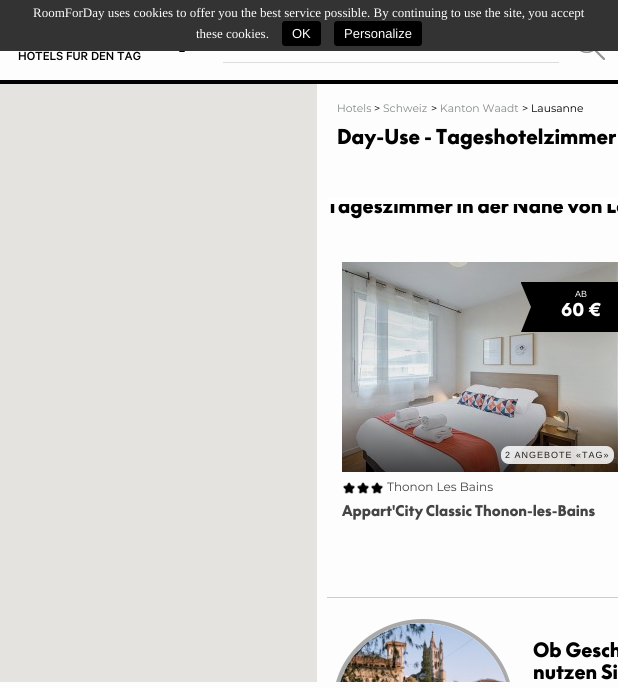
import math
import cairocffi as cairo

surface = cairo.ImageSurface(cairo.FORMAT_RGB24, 618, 688)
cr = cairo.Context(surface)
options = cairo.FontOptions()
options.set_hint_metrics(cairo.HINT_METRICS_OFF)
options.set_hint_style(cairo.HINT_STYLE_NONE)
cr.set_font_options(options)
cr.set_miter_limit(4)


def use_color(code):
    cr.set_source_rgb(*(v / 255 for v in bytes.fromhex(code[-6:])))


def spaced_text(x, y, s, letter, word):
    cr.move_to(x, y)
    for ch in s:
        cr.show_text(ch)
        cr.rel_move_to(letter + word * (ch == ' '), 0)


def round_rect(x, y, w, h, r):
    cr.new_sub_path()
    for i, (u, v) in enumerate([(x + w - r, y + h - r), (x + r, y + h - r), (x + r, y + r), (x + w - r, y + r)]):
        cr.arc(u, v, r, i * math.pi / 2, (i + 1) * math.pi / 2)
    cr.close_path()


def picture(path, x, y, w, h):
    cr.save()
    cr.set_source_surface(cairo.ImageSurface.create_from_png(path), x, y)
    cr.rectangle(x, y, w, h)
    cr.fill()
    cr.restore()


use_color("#fdfdfd")
cr.paint()
cr.select_font_face("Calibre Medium")
cr.set_font_size(13.25)
use_color("#000000")
cr.move_to(18, 60)
cr.show_text("HOTELS FÜR DEN TAG")
use_color("#333333")
cr.rectangle(0, 0, 618, 51)
cr.fill()
cr.select_font_face("Liberation Serif")
cr.set_font_size(13)
use_color("#ffffff")
cr.move_to(33, 17)
cr.show_text("RoomForDay uses cookies to offer you the best service possible. By continuing to use the site, you accept")
cr.move_to(196, 38)
cr.show_text("these cookies.")
use_color("#000000")
round_rect(282, 21, 39, 25, 3)
cr.fill()
cr.select_font_face("Liberation Sans")
use_color("#ffffff")
cr.move_to(292, 38)
cr.show_text("OK")
use_color("#000000")
round_rect(334, 21, 88, 25, 3)
cr.fill()
use_color("#ffffff")
cr.move_to(344, 38)
cr.show_text("Personalize")
picture("img1.png", 179, 51, 6, 1)
picture("img2.png", 580, 51, 25, 9)
use_color("#dddddd")
cr.rectangle(223, 62, 336, 1)
cr.fill()
use_color("#000000")
cr.rectangle(0, 80, 618, 4)
cr.fill()
use_color("#e5e3df")
cr.rectangle(0, 84, 317, 598)
cr.fill()
cr.select_font_face("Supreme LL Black")
cr.set_font_size(19.25)
use_color("#000000")
cr.move_to(327, 213)
cr.show_text("Tageszimmer in der Nähe von La")
use_color("#ffffff")
cr.rectangle(327, 198, 291, 6)
cr.fill()
cr.select_font_face("Montserrat")
cr.set_font_size(10.75)
use_color("#82888a")
cr.move_to(337, 112)
cr.show_text("Hotels")
use_color("#000000")
cr.move_to(374, 112)
cr.show_text(">")
use_color("#82888a")
cr.move_to(383, 112)
cr.show_text("Schweiz")
use_color("#000000")
cr.move_to(431, 112)
cr.show_text(">")
use_color("#82888a")
cr.move_to(440, 112)
cr.show_text("Kanton Waadt")
use_color("#000000")
cr.move_to(522, 112)
cr.show_text("> Lausanne")
cr.select_font_face("Supreme LL Black")
cr.set_font_size(20)
cr.move_to(337, 144)
cr.show_text("Day-Use - Tageshotelzimmer")
picture("img3.png", 342, 262, 276, 210)
cr.new_path()
cr.move_to(521, 282)
cr.line_to(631, 282)
cr.line_to(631, 332)
cr.line_to(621, 342)
cr.line_to(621, 332)
cr.line_to(521, 332)
cr.line_to(531, 307)
cr.line_to(521, 283)
cr.close_path()
cr.fill()
cr.select_font_face("Liberation Sans")
cr.set_font_size(9)
use_color("#ffffff")
cr.move_to(575, 297)
cr.show_text("AB")
cr.select_font_face("Supreme LL Black")
cr.set_font_size(18)
cr.move_to(561, 316)
cr.show_text("60 €")
cr.set_source_rgba(1, 1, 1, 0.85)
round_rect(501, 446, 113, 18, 8)
cr.fill()
cr.select_font_face("Liberation Sans")
cr.set_font_size(9)
use_color("#222222")
spaced_text(505, 458, "2 ANGEBOTE «TAG»", 1, 0)
picture("img4.png", 343, 482, 13, 12)
picture("img4.png", 357, 482, 13, 12)
picture("img4.png", 371, 482, 13, 12)
cr.select_font_face("Montserrat")
cr.set_font_size(12)
use_color("#444444")
cr.move_to(387, 491)
cr.show_text("Thonon Les Bains")
cr.select_font_face("Supreme LL Black")
cr.set_font_size(14.4)
cr.move_to(342, 516)
cr.show_text("Appart'City Classic Thonon-les-Bains")
use_color("#cccccc")
cr.rectangle(327, 597, 291, 1)
cr.fill()
cr.save()
cr.rectangle(317, 84, 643, 598)
cr.clip()
cr.new_path()
cr.move_to(423, 621)
cr.curve_to(471.5, 621, 511, 658, 511, 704)
cr.curve_to(511, 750, 471.5, 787, 423, 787)
cr.curve_to(374.5, 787, 335, 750, 335, 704)
cr.curve_to(335, 658, 374.5, 621, 423, 621)
cr.close_path()
use_color("#aaaaaa")
cr.set_line_width(4)
cr.stroke()
cr.restore()
picture("img5.png", 340, 623, 166, 59)
cr.set_font_size(19.25)
use_color("#000000")
cr.move_to(533, 657)
cr.show_text("Ob Gesch")
cr.move_to(533, 679)
cr.show_text("nutzen Si")
surface.write_to_png("result.png")
